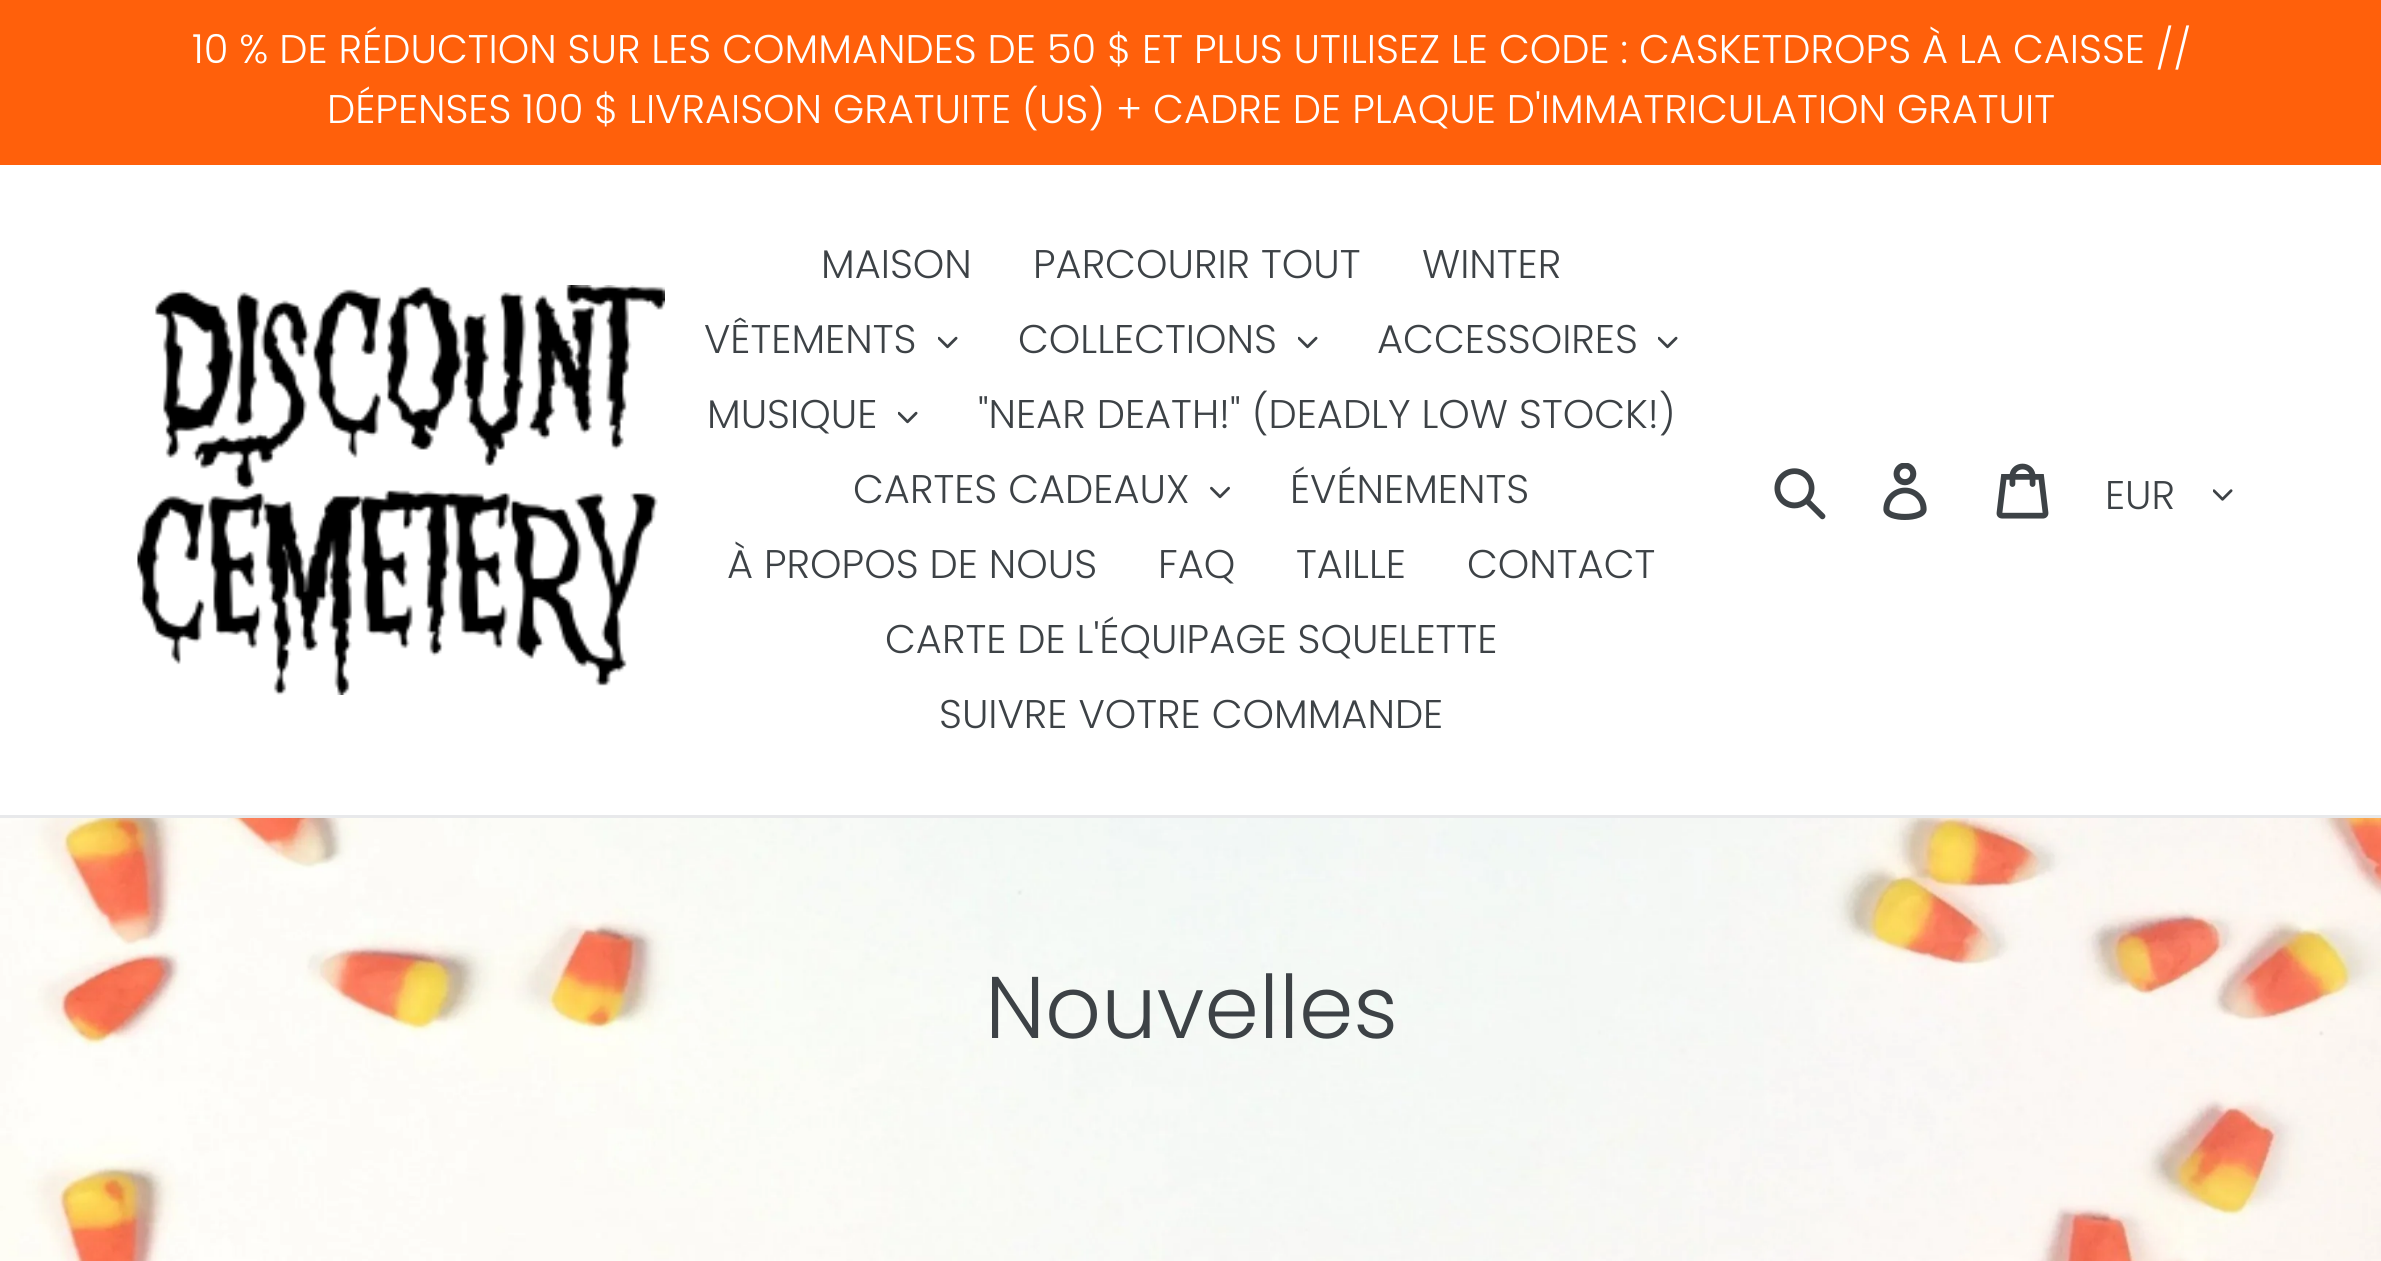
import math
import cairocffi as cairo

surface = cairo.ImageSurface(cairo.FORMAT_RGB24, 2381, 1261)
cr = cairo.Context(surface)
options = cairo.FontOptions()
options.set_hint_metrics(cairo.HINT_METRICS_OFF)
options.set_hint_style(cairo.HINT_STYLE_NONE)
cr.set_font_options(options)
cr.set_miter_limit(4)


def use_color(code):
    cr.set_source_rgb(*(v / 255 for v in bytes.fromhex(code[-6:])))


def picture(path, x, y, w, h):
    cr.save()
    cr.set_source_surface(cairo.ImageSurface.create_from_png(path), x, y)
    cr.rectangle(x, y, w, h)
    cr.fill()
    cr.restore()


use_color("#ffffff")
cr.paint()
picture("img1.png", 0, 818, 2381, 443)
use_color("#ff600b")
cr.rectangle(0, 0, 2381, 165)
cr.fill()
cr.select_font_face("Poppins Light")
cr.set_font_size(40)
use_color("#ffffff")
cr.move_to(192, 63)
cr.show_text("10 % DE RÉDUCTION SUR LES COMMANDES DE 50 $ ET PLUS UTILISEZ LE CODE : CASKETDROPS À LA CAISSE //")
cr.move_to(327, 123)
cr.show_text("DÉPENSES 100 $ LIVRAISON GRATUITE (US) + CADRE DE PLAQUE D'IMMATRICULATION GRATUIT")
use_color("#e8e9eb")
cr.rectangle(0, 815, 2381, 3)
cr.fill()
picture("img2.png", 137, 285, 528, 410)
use_color("#3d4246")
cr.move_to(821, 278)
cr.show_text("MAISON")
cr.move_to(1033, 278)
cr.show_text("PARCOURIR TOUT")
cr.move_to(1422, 278)
cr.show_text("WINTER")
cr.move_to(704, 353)
cr.show_text("VÊTEMENTS")
picture("img3.png", 938, 336, 20, 13)
cr.move_to(1018, 353)
cr.show_text("COLLECTIONS")
picture("img3.png", 1298, 336, 20, 13)
cr.move_to(1377, 353)
cr.show_text("ACCESSOIRES")
picture("img3.png", 1658, 336, 20, 13)
cr.move_to(707, 428)
cr.show_text("MUSIQUE")
picture("img3.png", 898, 411, 20, 13)
cr.move_to(978, 428)
cr.show_text("\"NEAR DEATH!\" (DEADLY LOW STOCK!)")
cr.move_to(853, 503)
cr.show_text("CARTES CADEAUX")
picture("img4.png", 1210, 486, 20, 13)
cr.move_to(1290, 503)
cr.show_text("ÉVÉNEMENTS")
cr.move_to(727, 578)
cr.show_text("À PROPOS DE NOUS")
cr.move_to(1158, 578)
cr.show_text("FAQ")
cr.move_to(1296, 578)
cr.show_text("TAILLE")
cr.move_to(1467, 578)
cr.show_text("CONTACT")
cr.move_to(885, 653)
cr.show_text("CARTE DE L'ÉQUIPAGE SQUELETTE")
cr.move_to(939, 728)
cr.show_text("SUIVRE VOTRE COMMANDE")
picture("img5.png", 1774, 468, 52, 52)
picture("img6.png", 1883, 463, 44, 57)
picture("img7.png", 1996, 463, 53, 56)
cr.move_to(2105, 509)
cr.show_text("EUR")
picture("img8.png", 2213, 489, 20, 12)
cr.set_font_size(87.5)
cr.move_to(985, 1038)
cr.show_text("Nouvelles")
surface.write_to_png("result.png")
